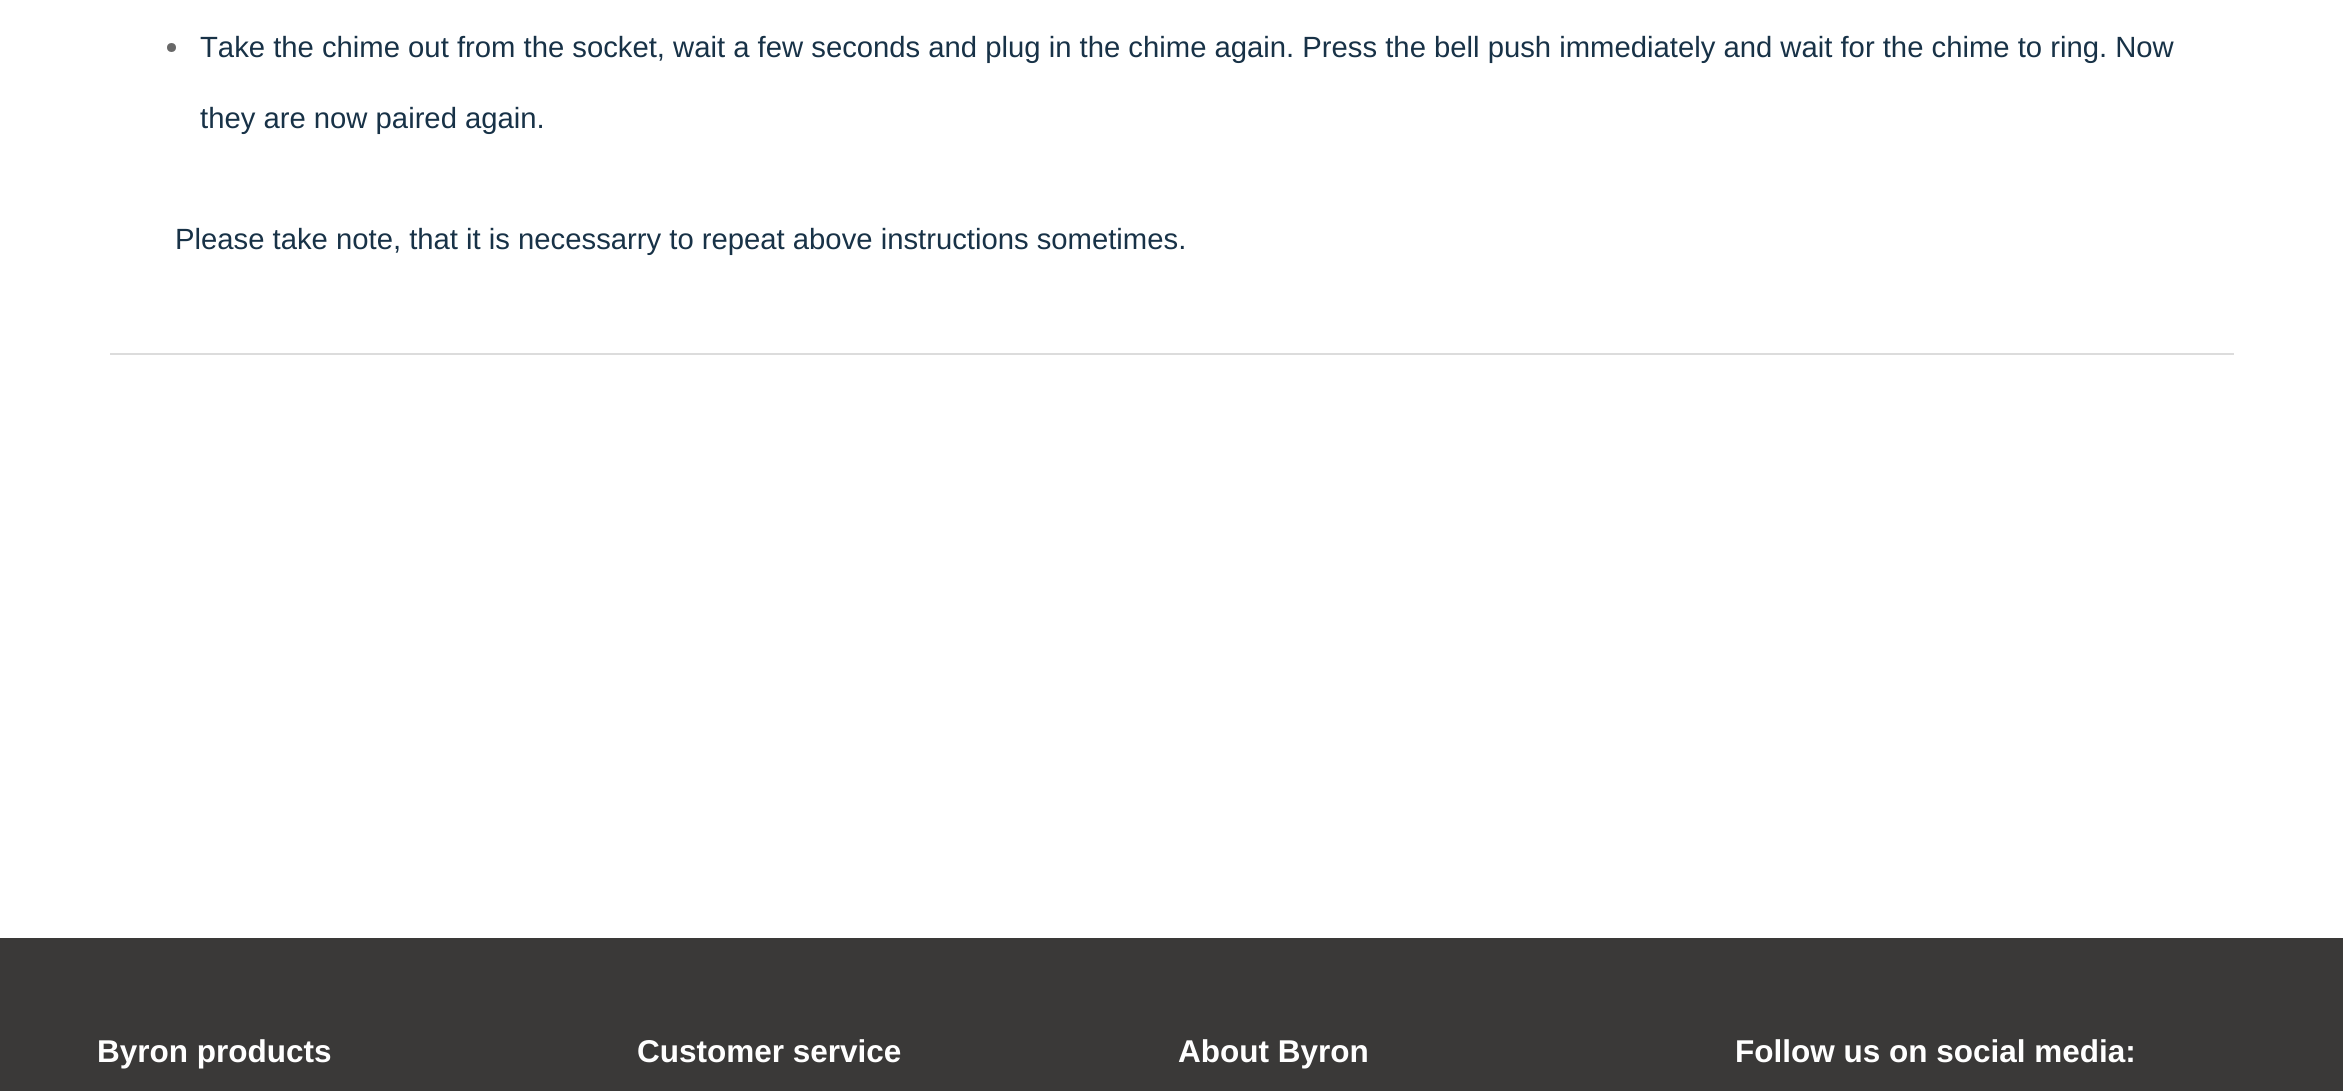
import math
import cairocffi as cairo

surface = cairo.ImageSurface(cairo.FORMAT_RGB24, 2343, 1091)
cr = cairo.Context(surface)
options = cairo.FontOptions()
options.set_hint_metrics(cairo.HINT_METRICS_OFF)
options.set_hint_style(cairo.HINT_STYLE_NONE)
cr.set_font_options(options)
cr.set_miter_limit(4)


def use_color(code):
    cr.set_source_rgb(*(v / 255 for v in bytes.fromhex(code[-6:])))


use_color("#ffffff")
cr.paint()
use_color("#686868")
cr.arc(171.5, 47.5, 4.5, 0, 2 * math.pi)
cr.fill()
cr.select_font_face("Liberation Sans")
cr.set_font_size(29.25)
use_color("#183247")
cr.move_to(200, 57)
cr.show_text("Take the chime out from the socket, wait a few seconds and plug in the chime again. Press the bell push immediately and wait for the chime to ring. Now")
cr.move_to(200, 128)
cr.show_text("they are now paired again.")
cr.move_to(175, 249)
cr.show_text("Please take note, that it is necessarry to repeat above instructions sometimes.")
use_color("#dcdcdc")
cr.rectangle(110, 353, 2124, 2)
cr.fill()
use_color("#3a3938")
cr.rectangle(0, 938, 2343, 153)
cr.fill()
cr.select_font_face("Liberation Sans", cairo.FONT_SLANT_NORMAL, cairo.FONT_WEIGHT_BOLD)
cr.set_font_size(31.5)
use_color("#ffffff")
cr.move_to(97, 1062)
cr.show_text("Byron products")
cr.move_to(637, 1062)
cr.show_text("Customer service")
cr.move_to(1178, 1062)
cr.show_text("About Byron")
cr.move_to(1735, 1062)
cr.show_text("Follow us on social media:")
surface.write_to_png("result.png")
